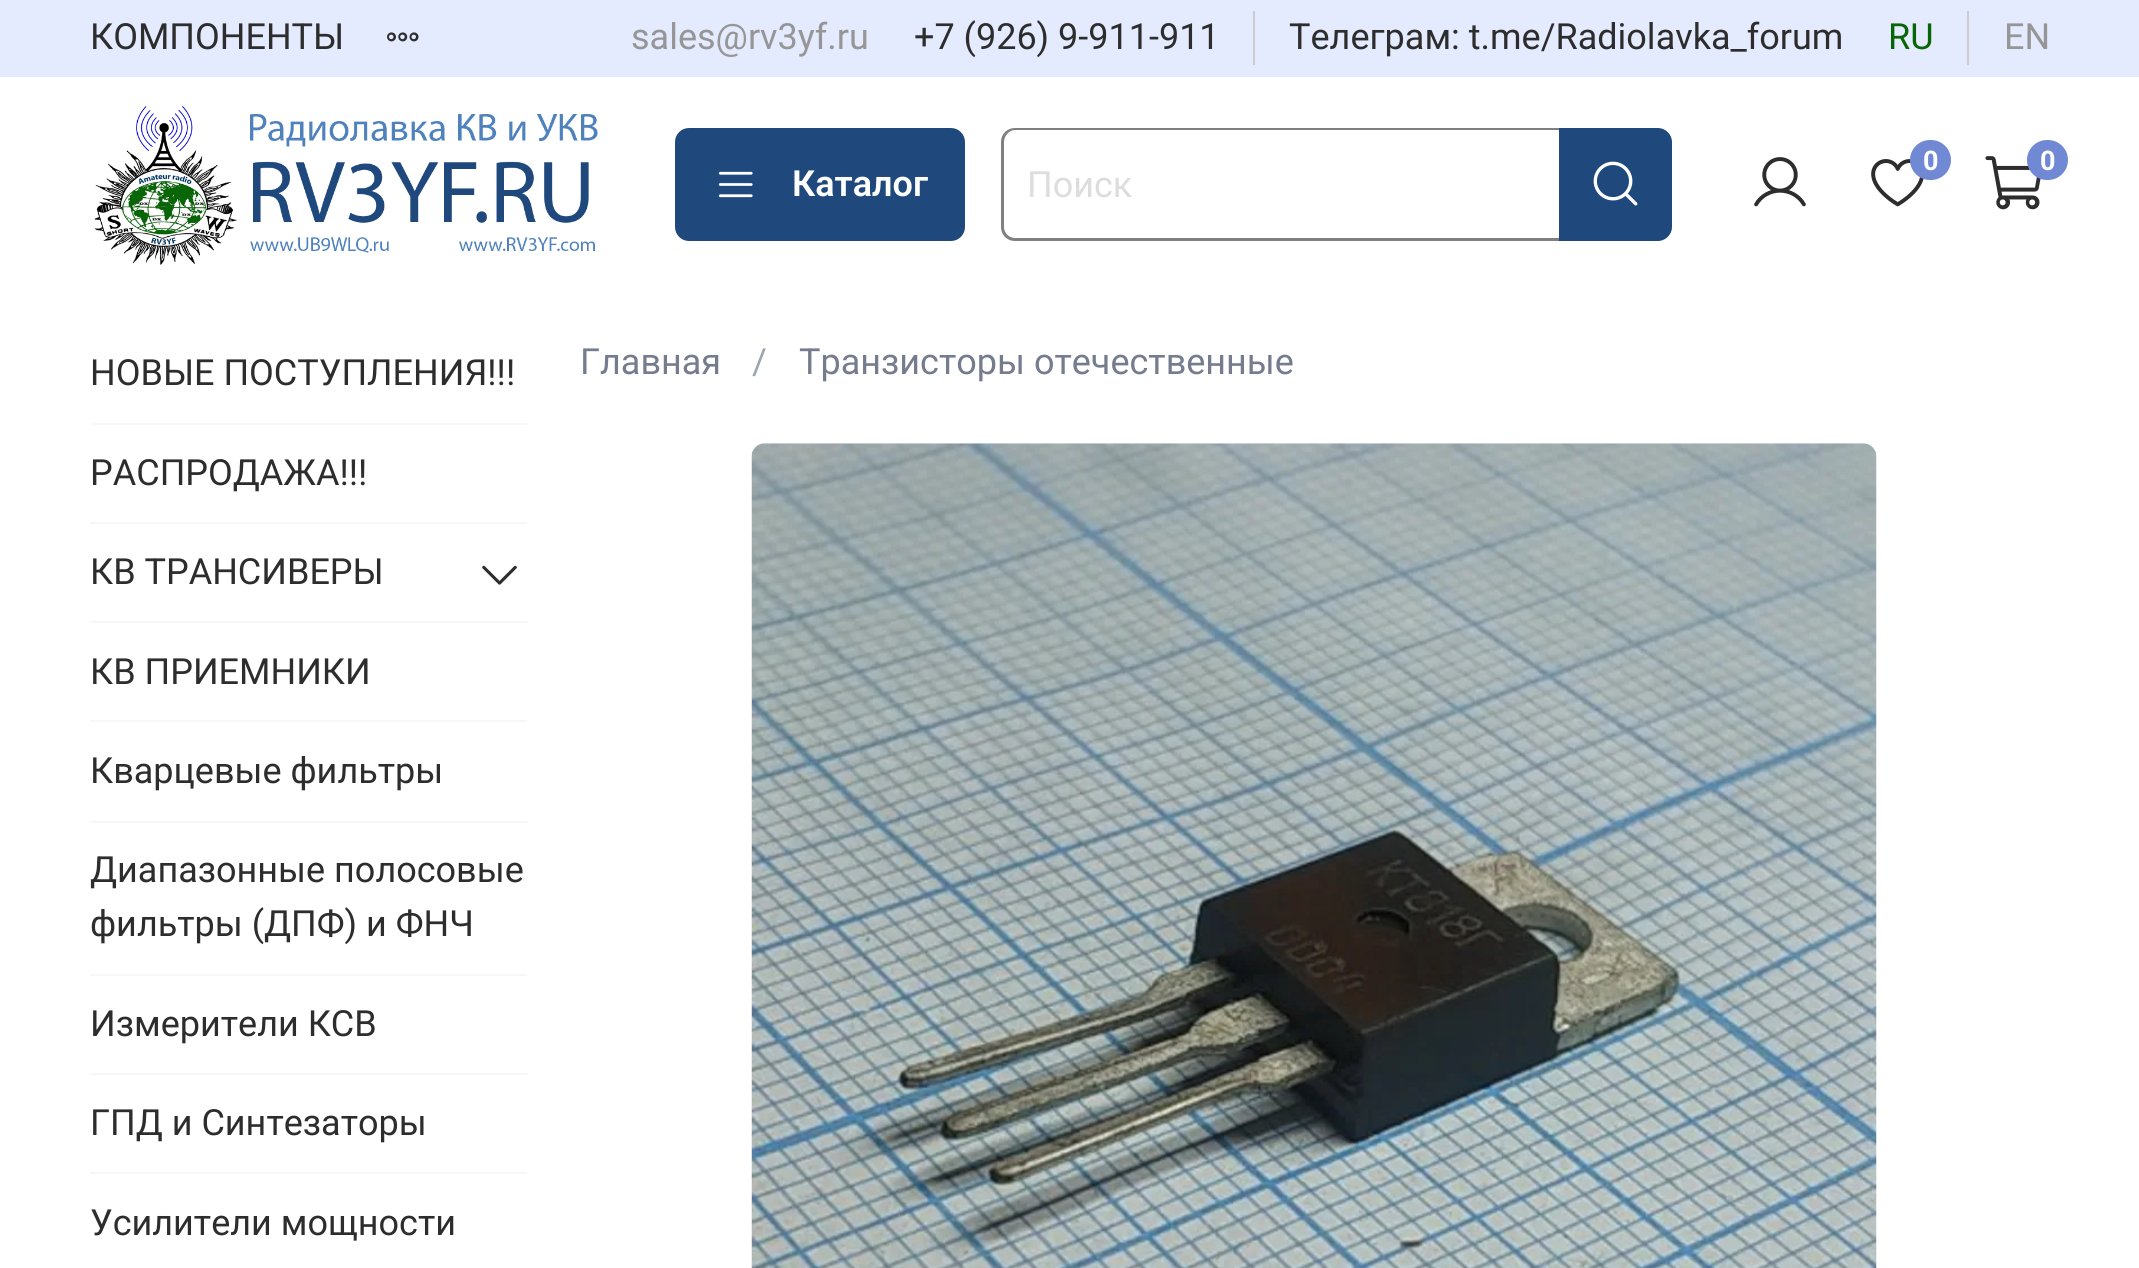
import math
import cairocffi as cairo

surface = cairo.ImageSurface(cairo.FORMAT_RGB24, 2139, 1268)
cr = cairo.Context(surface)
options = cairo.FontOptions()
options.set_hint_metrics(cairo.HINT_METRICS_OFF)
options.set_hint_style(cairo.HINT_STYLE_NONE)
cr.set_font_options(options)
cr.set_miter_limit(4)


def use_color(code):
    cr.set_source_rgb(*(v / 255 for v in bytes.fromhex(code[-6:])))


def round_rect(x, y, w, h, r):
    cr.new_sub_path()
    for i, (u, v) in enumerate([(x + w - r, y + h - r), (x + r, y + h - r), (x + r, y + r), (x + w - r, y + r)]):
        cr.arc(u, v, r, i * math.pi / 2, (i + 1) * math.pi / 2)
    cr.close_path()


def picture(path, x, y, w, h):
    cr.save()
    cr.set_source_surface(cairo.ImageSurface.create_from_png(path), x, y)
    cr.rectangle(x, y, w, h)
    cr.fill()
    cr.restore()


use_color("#ffffff")
cr.paint()
use_color("#e5ebff")
cr.rectangle(0, 0, 2139, 77)
cr.fill()
cr.select_font_face("Roboto")
cr.set_font_size(36)
use_color("#2d2d2d")
cr.move_to(90, 49)
cr.show_text("КОМПОНЕНТЫ")
picture("img1.png", 387, 32, 32, 10)
use_color("#969696")
cr.move_to(631, 49)
cr.show_text("sales@rv3yf.ru")
use_color("#cccccc")
cr.rectangle(1253, 11, 2, 54)
cr.fill()
use_color("#2d2d2d")
cr.move_to(914, 49)
cr.show_text("+7 (926) 9-911-911")
cr.move_to(1289, 49)
cr.show_text("Телеграм: t.me/Radiolavka_forum")
use_color("#cccccc")
cr.rectangle(1967, 11, 2, 54)
cr.fill()
use_color("#096607")
cr.move_to(1888, 49)
cr.show_text("RU")
use_color("#969696")
cr.move_to(2004, 49)
cr.show_text("EN")
picture("img2.png", 94, 106, 504, 159)
picture("img3.png", 1754, 157, 52, 50)
picture("img4.png", 1871, 159, 53, 48)
use_color("#7188d4")
round_rect(1910, 140, 41, 40, 20)
cr.fill()
cr.select_font_face("Roboto", cairo.FONT_SLANT_NORMAL, cairo.FONT_WEIGHT_BOLD)
cr.set_font_size(27)
use_color("#ffffff")
cr.move_to(1923, 170)
cr.show_text("0")
picture("img5.png", 1985, 156, 56, 54)
use_color("#7188d4")
round_rect(2027, 140, 41, 40, 20)
cr.fill()
use_color("#ffffff")
cr.move_to(2040, 170)
cr.show_text("0")
use_color("#1f497d")
round_rect(675, 128, 290, 113, 14)
cr.fill()
picture("img6.png", 718, 171, 35, 27)
cr.select_font_face("Roboto SemiBold")
cr.set_font_size(36)
use_color("#ffffff")
cr.move_to(792, 196)
cr.show_text("Каталог")
use_color("#808080")
cr.set_fill_rule(cairo.FILL_RULE_EVEN_ODD)
cr.new_path()
cr.move_to(1015, 128)
cr.line_to(1559, 128)
cr.line_to(1559, 241)
cr.line_to(1015, 241)
cr.curve_to(1007, 241, 1001, 235, 1001, 227)
cr.line_to(1001, 142)
cr.curve_to(1001, 134, 1007, 128, 1015, 128)
cr.close_path()
cr.move_to(1015, 130)
cr.line_to(1559, 130)
cr.line_to(1559, 238)
cr.line_to(1015, 238)
cr.curve_to(1009, 238, 1004, 233, 1004, 227)
cr.line_to(1004, 142)
cr.curve_to(1004, 136, 1009, 130, 1015, 130)
cr.close_path()
cr.fill()
cr.select_font_face("Roboto")
use_color("#dddddd")
cr.move_to(1027, 197)
cr.show_text("Поиск")
use_color("#1f497d")
cr.new_path()
cr.move_to(1559, 128)
cr.line_to(1658, 128)
cr.curve_to(1665.5, 128, 1672, 134.5, 1672, 142)
cr.line_to(1672, 227)
cr.curve_to(1672, 234.5, 1665.5, 241, 1658, 241)
cr.line_to(1559, 241)
cr.close_path()
cr.fill()
picture("img7.png", 1593, 161, 45, 45)
use_color("#f7f7f7")
cr.rectangle(90, 423, 437, 2)
cr.fill()
use_color("#2d2d2d")
cr.move_to(90, 385)
cr.show_text("НОВЫЕ ПОСТУПЛЕНИЯ!!!")
use_color("#f7f7f7")
cr.rectangle(90, 522, 437, 2)
cr.fill()
use_color("#2d2d2d")
cr.move_to(90, 485)
cr.show_text("РАСПРОДАЖА!!!")
use_color("#f7f7f7")
cr.rectangle(90, 621, 437, 2)
cr.fill()
use_color("#2d2d2d")
cr.move_to(90, 584)
cr.show_text("КВ ТРАНСИВЕРЫ")
picture("img8.png", 482, 565, 35, 20)
use_color("#f7f7f7")
cr.rectangle(90, 720, 437, 2)
cr.fill()
use_color("#2d2d2d")
cr.move_to(90, 684)
cr.show_text("КВ ПРИЕМНИКИ")
use_color("#f7f7f7")
cr.rectangle(90, 821, 437, 2)
cr.fill()
use_color("#2d2d2d")
cr.move_to(90, 783)
cr.show_text("Кварцевые фильтры")
use_color("#f7f7f7")
cr.rectangle(90, 974, 437, 2)
cr.fill()
use_color("#2d2d2d")
cr.move_to(90, 882)
cr.show_text("Диапазонные полосовые")
cr.move_to(90, 936)
cr.show_text("фильтры (ДПФ) и ФНЧ")
use_color("#f7f7f7")
cr.rectangle(90, 1073, 437, 2)
cr.fill()
use_color("#2d2d2d")
cr.move_to(90, 1036)
cr.show_text("Измерители КСВ")
use_color("#f7f7f7")
cr.rectangle(90, 1172, 437, 2)
cr.fill()
use_color("#2d2d2d")
cr.move_to(90, 1135)
cr.show_text("ГПД и Синтезаторы")
cr.move_to(90, 1235)
cr.show_text("Усилители мощности")
use_color("#757c8e")
cr.move_to(580, 374)
cr.show_text("Главная")
use_color("#9ea3b0")
cr.move_to(752, 374)
cr.show_text("/")
use_color("#757c8e")
cr.move_to(799, 374)
cr.show_text("Транзисторы отечественные")
picture("img9.png", 751, 443, 1126, 825)
surface.write_to_png("result.png")
